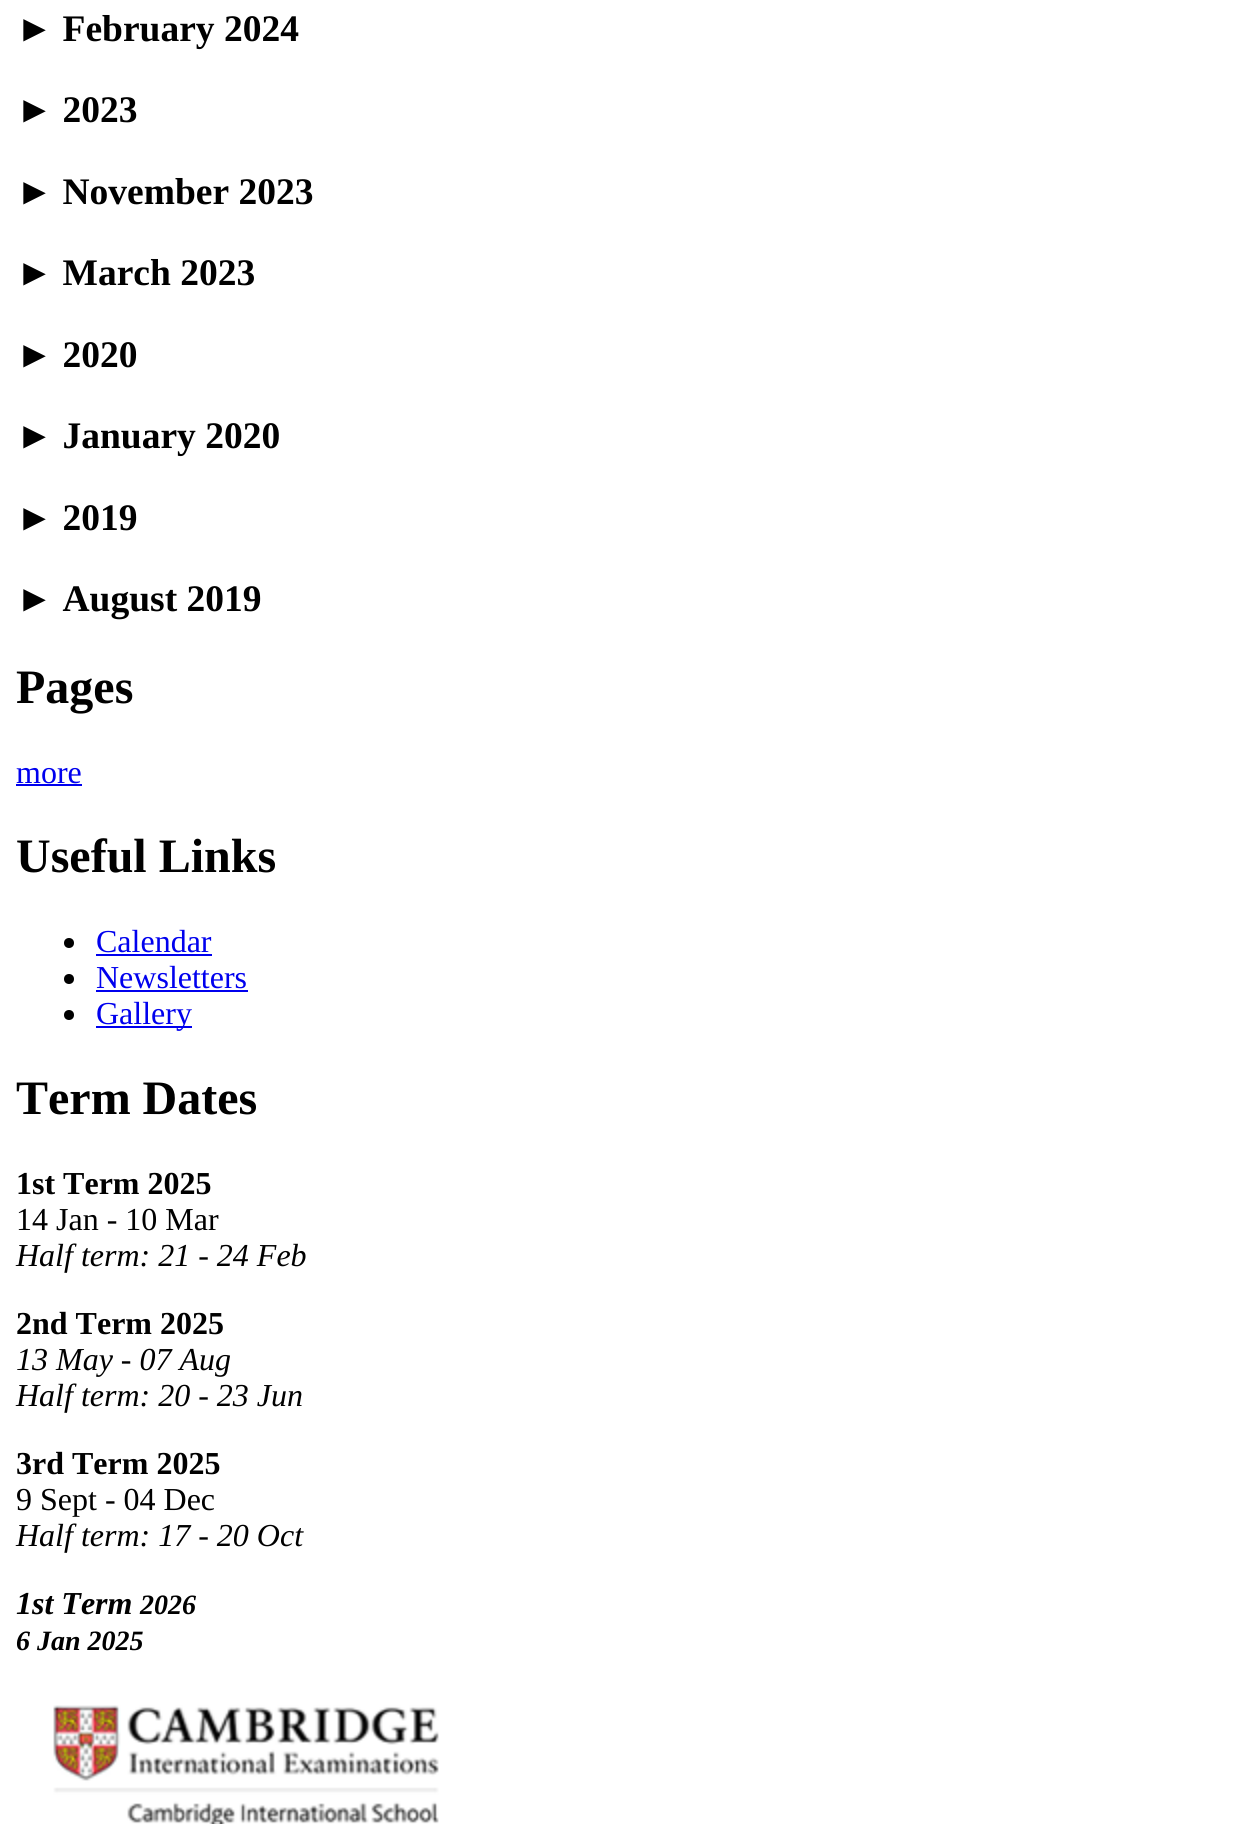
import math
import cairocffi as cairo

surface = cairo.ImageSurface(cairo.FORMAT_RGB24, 1260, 1824)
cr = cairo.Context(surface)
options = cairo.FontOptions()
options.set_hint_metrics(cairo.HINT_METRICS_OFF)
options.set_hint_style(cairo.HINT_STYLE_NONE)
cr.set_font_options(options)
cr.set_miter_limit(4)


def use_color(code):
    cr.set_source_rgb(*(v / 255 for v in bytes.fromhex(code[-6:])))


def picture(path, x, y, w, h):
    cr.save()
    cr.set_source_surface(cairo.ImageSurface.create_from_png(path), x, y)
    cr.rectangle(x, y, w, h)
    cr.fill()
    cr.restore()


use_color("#ffffff")
cr.paint()
cr.select_font_face("Liberation Serif", cairo.FONT_SLANT_NORMAL, cairo.FONT_WEIGHT_BOLD)
cr.set_font_size(37.5)
use_color("#000000")
cr.move_to(16, 41)
cr.show_text("► February 2024")
cr.move_to(16, 122)
cr.show_text("► 2023")
cr.move_to(16, 204)
cr.show_text("► November 2023")
cr.move_to(16, 285)
cr.show_text("► March 2023")
cr.move_to(16, 367)
cr.show_text("► 2020")
cr.move_to(16, 448)
cr.show_text("► January 2020")
cr.move_to(16, 530)
cr.show_text("► 2019")
cr.move_to(16, 611)
cr.show_text("► August 2019")
cr.set_font_size(48)
cr.move_to(16, 703)
cr.show_text("Pages")
cr.select_font_face("Liberation Serif")
cr.set_font_size(32)
use_color("#0000ee")
cr.move_to(16, 783)
cr.show_text("more")
cr.rectangle(16, 784, 66, 2)
cr.fill()
cr.select_font_face("Liberation Serif", cairo.FONT_SLANT_NORMAL, cairo.FONT_WEIGHT_BOLD)
cr.set_font_size(48)
use_color("#000000")
cr.move_to(16, 872)
cr.show_text("Useful Links")
cr.new_path()
cr.arc(69, 943, 5, 0, 2 * math.pi)
cr.fill()
cr.select_font_face("Liberation Serif")
cr.set_font_size(32)
use_color("#0000ee")
cr.move_to(96, 952)
cr.show_text("Calendar")
cr.rectangle(96, 954, 116, 2)
cr.fill()
use_color("#000000")
cr.arc(69, 979, 5, 0, 2 * math.pi)
cr.fill()
use_color("#0000ee")
cr.move_to(96, 988)
cr.show_text("Newsletters")
cr.rectangle(96, 990, 152, 2)
cr.fill()
use_color("#000000")
cr.arc(69, 1015, 5, 0, 2 * math.pi)
cr.fill()
use_color("#0000ee")
cr.rectangle(96, 1026, 96, 2)
cr.fill()
cr.move_to(96, 1024)
cr.show_text("Gallery")
cr.select_font_face("Liberation Serif", cairo.FONT_SLANT_NORMAL, cairo.FONT_WEIGHT_BOLD)
cr.set_font_size(48)
use_color("#000000")
cr.move_to(16, 1114)
cr.show_text("Term Dates")
cr.set_font_size(32)
cr.move_to(16, 1194)
cr.show_text("1st Term 2025")
cr.select_font_face("Liberation Serif")
cr.move_to(16, 1230)
cr.show_text("14 Jan - 10 Mar")
cr.select_font_face("Liberation Serif", cairo.FONT_SLANT_ITALIC)
cr.move_to(16, 1266)
cr.show_text("Half term: 21 - 24 Feb")
cr.select_font_face("Liberation Serif", cairo.FONT_SLANT_NORMAL, cairo.FONT_WEIGHT_BOLD)
cr.move_to(16, 1334)
cr.show_text("2nd Term 2025")
cr.select_font_face("Liberation Serif", cairo.FONT_SLANT_ITALIC)
cr.move_to(16, 1370)
cr.show_text("13 May - 07 Aug")
cr.move_to(16, 1406)
cr.show_text("Half term: 20 - 23 Jun")
cr.select_font_face("Liberation Serif", cairo.FONT_SLANT_NORMAL, cairo.FONT_WEIGHT_BOLD)
cr.move_to(16, 1474)
cr.show_text("3rd Term 2025")
cr.select_font_face("Liberation Serif")
cr.move_to(16, 1510)
cr.show_text("9 Sept - 04 Dec")
cr.select_font_face("Liberation Serif", cairo.FONT_SLANT_ITALIC)
cr.move_to(16, 1546)
cr.show_text("Half term: 17 - 20 Oct")
cr.select_font_face("Liberation Serif", cairo.FONT_SLANT_ITALIC, cairo.FONT_WEIGHT_BOLD)
cr.move_to(16, 1614)
cr.show_text("1st Term")
cr.set_font_size(28)
cr.move_to(140, 1614)
cr.show_text("2026")
cr.move_to(16, 1650)
cr.show_text("6 Jan 2025")
picture("img1.png", 53, 1705, 386, 119)
surface.write_to_png("result.png")
